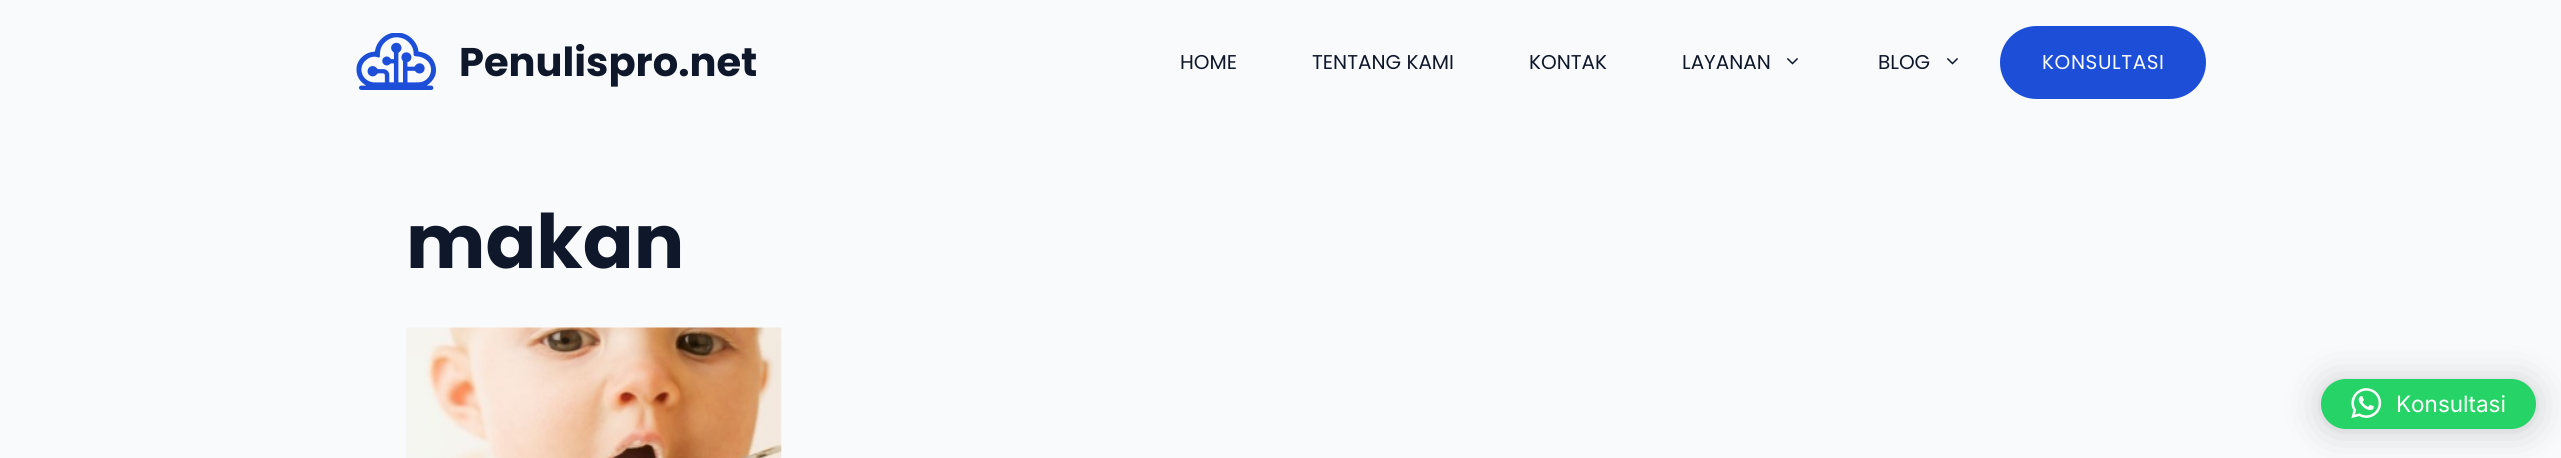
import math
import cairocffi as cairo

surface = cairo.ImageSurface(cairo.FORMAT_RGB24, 2561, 458)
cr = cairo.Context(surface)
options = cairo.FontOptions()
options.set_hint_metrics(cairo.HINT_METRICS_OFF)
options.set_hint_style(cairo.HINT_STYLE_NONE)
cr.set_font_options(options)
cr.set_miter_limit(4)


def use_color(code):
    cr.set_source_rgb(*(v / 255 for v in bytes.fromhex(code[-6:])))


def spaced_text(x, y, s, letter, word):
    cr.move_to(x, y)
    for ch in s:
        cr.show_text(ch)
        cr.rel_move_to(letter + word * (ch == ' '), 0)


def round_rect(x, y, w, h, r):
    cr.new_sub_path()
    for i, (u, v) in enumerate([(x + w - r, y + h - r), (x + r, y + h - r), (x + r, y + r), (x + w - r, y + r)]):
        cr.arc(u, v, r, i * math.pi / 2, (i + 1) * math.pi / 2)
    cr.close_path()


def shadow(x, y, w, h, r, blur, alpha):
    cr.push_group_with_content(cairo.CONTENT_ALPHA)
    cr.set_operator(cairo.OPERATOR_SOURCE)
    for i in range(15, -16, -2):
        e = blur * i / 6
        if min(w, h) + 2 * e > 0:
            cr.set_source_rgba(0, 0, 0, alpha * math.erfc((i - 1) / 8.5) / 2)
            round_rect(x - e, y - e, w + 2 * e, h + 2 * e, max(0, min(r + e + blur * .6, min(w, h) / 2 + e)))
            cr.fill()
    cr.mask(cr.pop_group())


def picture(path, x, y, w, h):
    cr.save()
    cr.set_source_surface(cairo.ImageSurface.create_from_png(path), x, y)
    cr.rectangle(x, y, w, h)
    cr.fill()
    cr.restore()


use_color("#f8fafc")
cr.paint()
picture("img1.png", 356, 33, 80, 57)
cr.select_font_face("Poppins", cairo.FONT_SLANT_NORMAL, cairo.FONT_WEIGHT_BOLD)
cr.set_font_size(40)
use_color("#0f172a")
cr.move_to(459, 76)
cr.show_text("Penulispro.net")
cr.select_font_face("Poppins")
cr.set_font_size(20)
cr.move_to(1180, 69)
cr.show_text("HOME")
cr.move_to(1312, 69)
cr.show_text("TENTANG KAMI")
cr.move_to(1529, 69)
cr.show_text("KONTAK")
cr.move_to(1682, 69)
cr.show_text("LAYANAN")
picture("img2.png", 1787, 58, 11, 7)
cr.move_to(1878, 69)
cr.show_text("BLOG")
picture("img2.png", 1947, 58, 11, 7)
use_color("#1d4ed8")
round_rect(2000, 26, 206, 73, 36.5)
cr.fill()
use_color("#f8fafc")
spaced_text(2042, 69, "KONSULTASI", 0.6, 0)
cr.select_font_face("Poppins", cairo.FONT_SLANT_NORMAL, cairo.FONT_WEIGHT_BOLD)
cr.set_font_size(75)
use_color("#0f172a")
cr.move_to(406, 268)
cr.show_text("makan")
picture("img3.png", 406, 327, 376, 131)
use_color("#000000")
shadow(2321, 381, 215, 50, 25, 20, 0.16)
shadow(2321, 380, 215, 50, 25, 4, 0.06)
use_color("#25d366")
round_rect(2321, 379, 215, 50, 25)
cr.fill()
picture("img4.png", 2351, 388, 31, 31)
cr.select_font_face("Inter")
cr.set_font_size(22.5)
use_color("#ffffff")
cr.move_to(2396, 412)
cr.show_text("Konsultasi")
surface.write_to_png("result.png")
